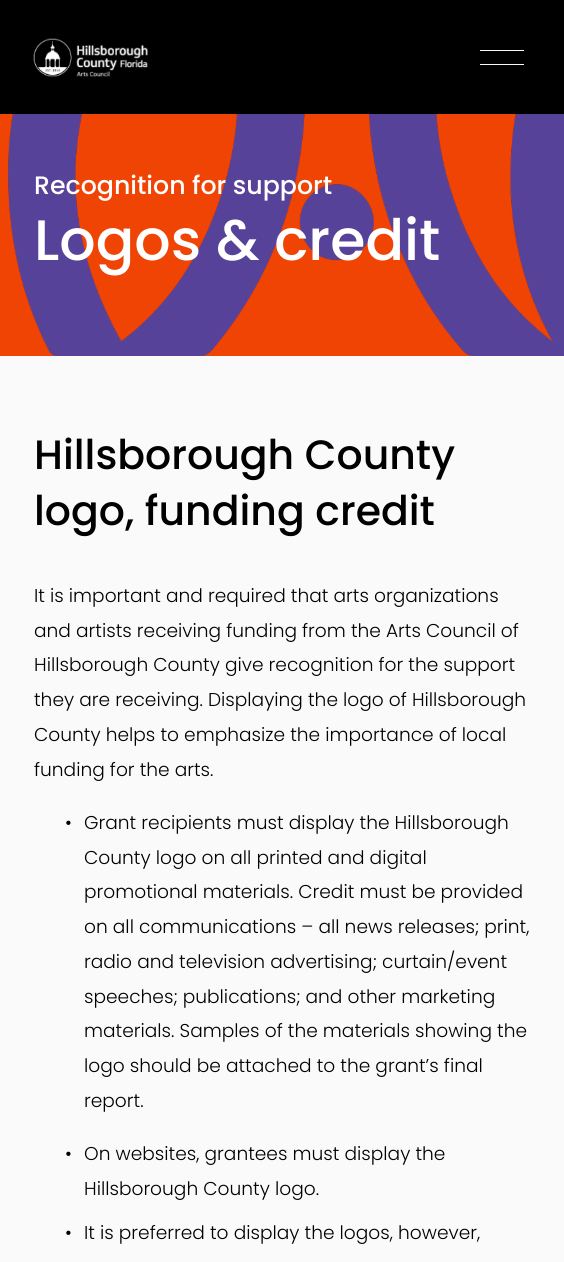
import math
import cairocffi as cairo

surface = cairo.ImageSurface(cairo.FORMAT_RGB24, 564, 1262)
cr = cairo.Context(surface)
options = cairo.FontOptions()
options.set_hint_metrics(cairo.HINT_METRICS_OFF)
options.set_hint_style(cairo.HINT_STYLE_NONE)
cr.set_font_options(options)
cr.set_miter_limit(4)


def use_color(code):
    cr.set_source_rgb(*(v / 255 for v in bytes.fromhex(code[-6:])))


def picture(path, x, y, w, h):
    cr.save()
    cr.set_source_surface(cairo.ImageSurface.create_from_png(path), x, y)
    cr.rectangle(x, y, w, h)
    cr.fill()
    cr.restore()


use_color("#f04404")
cr.paint()
use_color("#000000")
cr.rectangle(0, 0, 564, 114)
cr.fill()
picture("img1.png", 33, 38, 115, 39)
use_color("#fafafa")
cr.rectangle(480, 50, 44, 1)
cr.fill()
cr.rectangle(480, 64, 44, 1)
cr.fill()
picture("img2.png", 8, 114, 556, 242)
cr.select_font_face("Poppins Medium")
cr.set_font_size(25.25)
use_color("#ffffff")
cr.move_to(34, 194)
cr.show_text("Recognition for support")
cr.set_font_size(57)
cr.move_to(34, 260)
cr.show_text("Logos & credit")
use_color("#fafafa")
cr.rectangle(0, 356, 564, 906)
cr.fill()
cr.set_font_size(41)
use_color("#000000")
cr.move_to(34, 469)
cr.show_text("Hillsborough County")
cr.move_to(34, 525)
cr.show_text("logo, funding credit")
cr.select_font_face("Poppins Light")
cr.set_font_size(18.6)
cr.move_to(34, 602)
cr.show_text("It is important and required that arts organizations")
cr.move_to(34, 637)
cr.show_text("and artists receiving funding from the Arts Council of")
cr.move_to(34, 671)
cr.show_text("Hillsborough County give recognition for the support")
cr.move_to(34, 706)
cr.show_text("they are receiving. Displaying the logo of Hillsborough")
cr.move_to(34, 741)
cr.show_text("County helps to emphasize the importance of local")
cr.move_to(34, 776)
cr.show_text("funding for the arts.")
cr.move_to(65, 829)
cr.show_text("•")
cr.move_to(84, 829)
cr.show_text("Grant recipients must display the Hillsborough")
cr.move_to(84, 864)
cr.show_text("County logo on all printed and digital")
cr.move_to(84, 898)
cr.show_text("promotional materials. Credit must be provided")
cr.move_to(84, 933)
cr.show_text("on all communications – all news releases; print,")
cr.move_to(84, 968)
cr.show_text("radio and television advertising; curtain/event")
cr.move_to(84, 1003)
cr.show_text("speeches; publications; and other marketing")
cr.move_to(84, 1037)
cr.show_text("materials. Samples of the materials showing the")
cr.move_to(84, 1072)
cr.show_text("logo should be attached to the grant’s final")
cr.move_to(84, 1107)
cr.show_text("report.")
cr.move_to(65, 1160)
cr.show_text("•")
cr.move_to(84, 1160)
cr.show_text("On websites, grantees must display the")
cr.move_to(84, 1195)
cr.show_text("Hillsborough County logo.")
cr.move_to(65, 1239)
cr.show_text("•")
cr.move_to(84, 1239)
cr.show_text("It is preferred to display the logos, however,")
surface.write_to_png("result.png")
